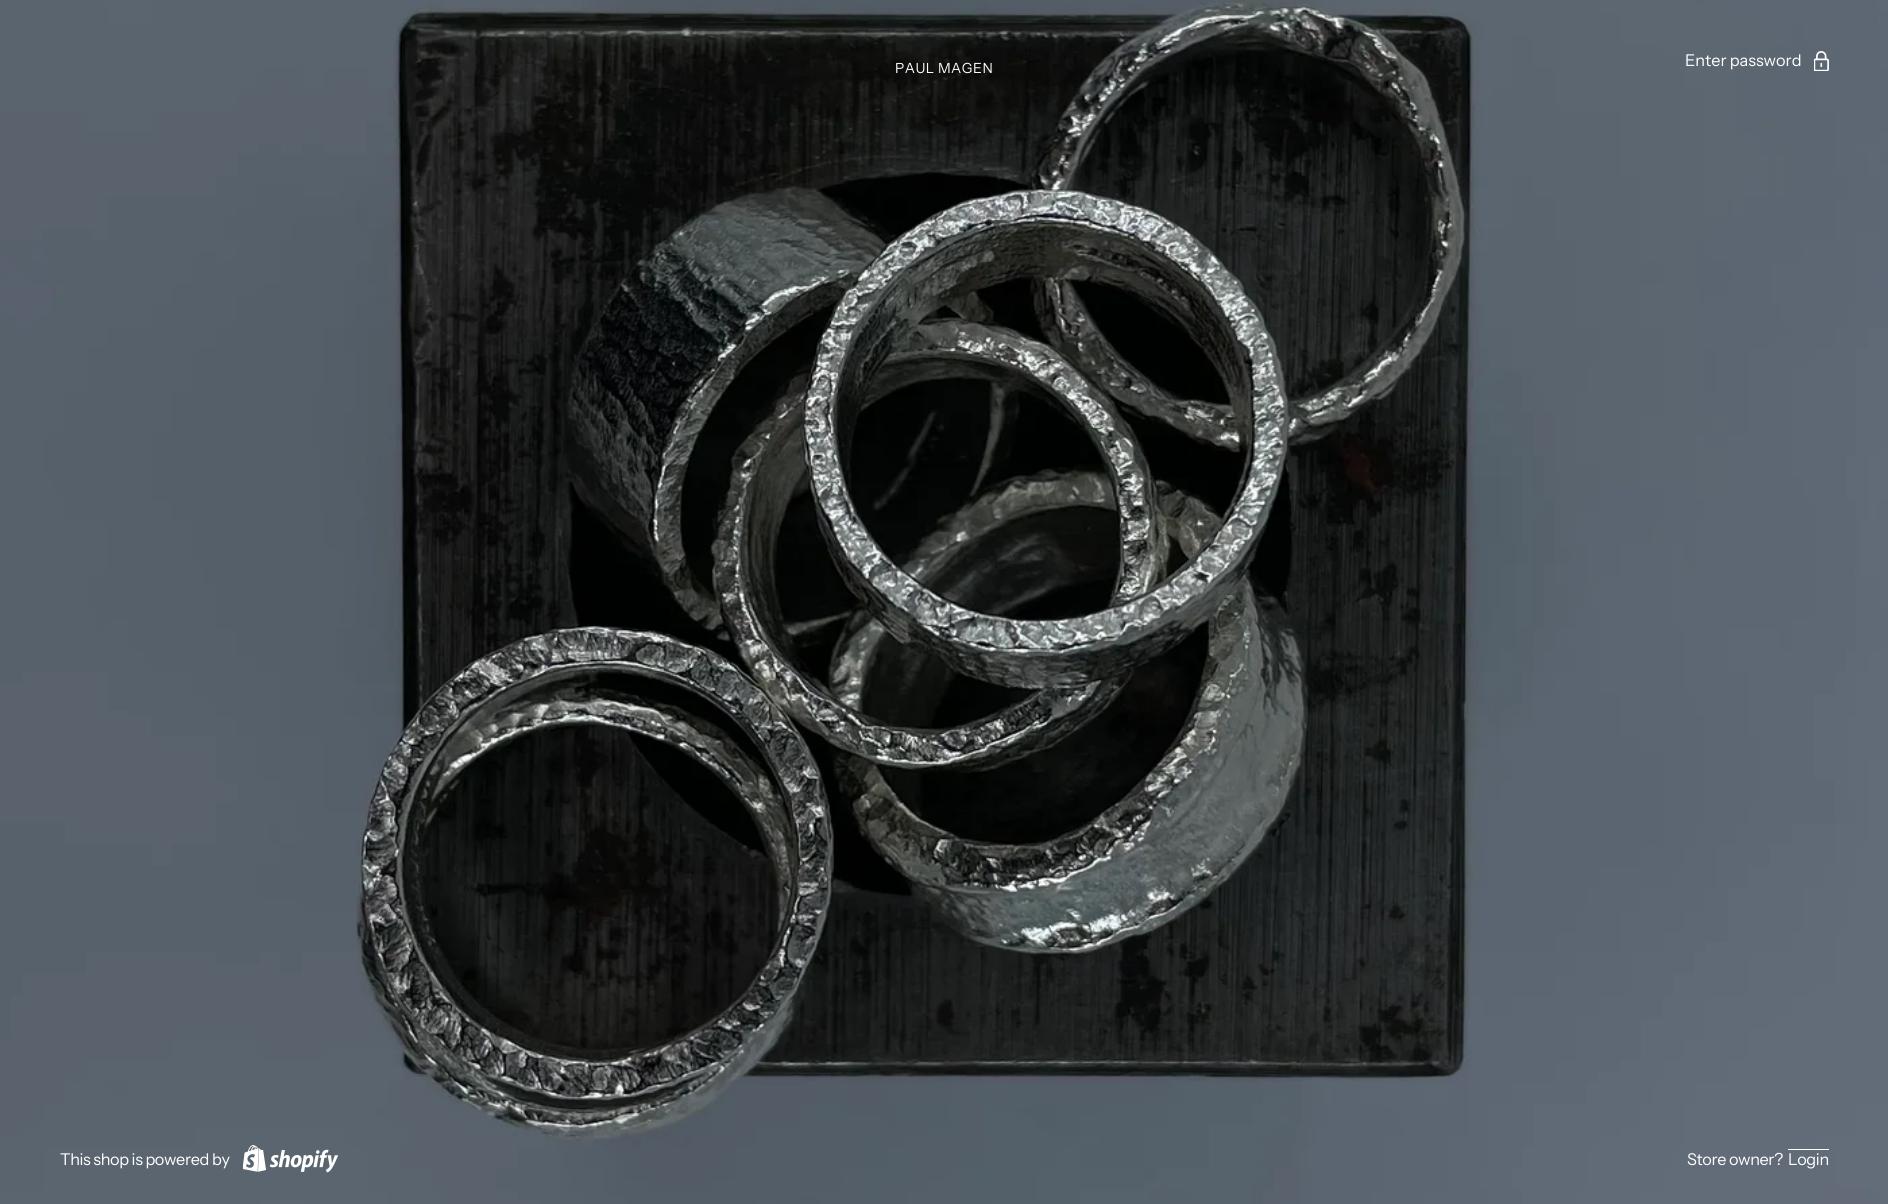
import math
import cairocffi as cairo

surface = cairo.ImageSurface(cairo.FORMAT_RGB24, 1888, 1204)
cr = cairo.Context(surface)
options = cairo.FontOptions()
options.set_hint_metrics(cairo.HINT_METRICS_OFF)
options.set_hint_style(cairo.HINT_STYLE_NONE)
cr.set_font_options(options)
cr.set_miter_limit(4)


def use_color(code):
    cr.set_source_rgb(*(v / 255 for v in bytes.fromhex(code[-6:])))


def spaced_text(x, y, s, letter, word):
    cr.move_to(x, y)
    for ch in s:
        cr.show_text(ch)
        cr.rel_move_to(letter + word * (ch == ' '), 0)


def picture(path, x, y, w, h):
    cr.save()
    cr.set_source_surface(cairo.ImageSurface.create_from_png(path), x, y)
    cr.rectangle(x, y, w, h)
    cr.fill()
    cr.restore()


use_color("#ffffff")
cr.paint()
picture("img1.png", 0, 0, 1888, 1204)
cr.select_font_face("Instrument Sans")
cr.set_font_size(14)
use_color("#ffffff")
spaced_text(895, 73, "PAUL MAGEN", 0.5, 0)
cr.set_font_size(16.25)
cr.move_to(1685, 66)
cr.show_text("Enter password")
picture("img2.png", 1814, 51, 15, 20)
spaced_text(60, 1165, "This shop is powered by", -0.35, 0)
picture("img3.png", 243, 1145, 96, 28)
spaced_text(1687, 1165, "Store owner?", -0.35, 0)
spaced_text(1788, 1165, "Login", -0.35, 0)
cr.rectangle(1788, 1149, 41, 1)
cr.fill()
surface.write_to_png("result.png")
